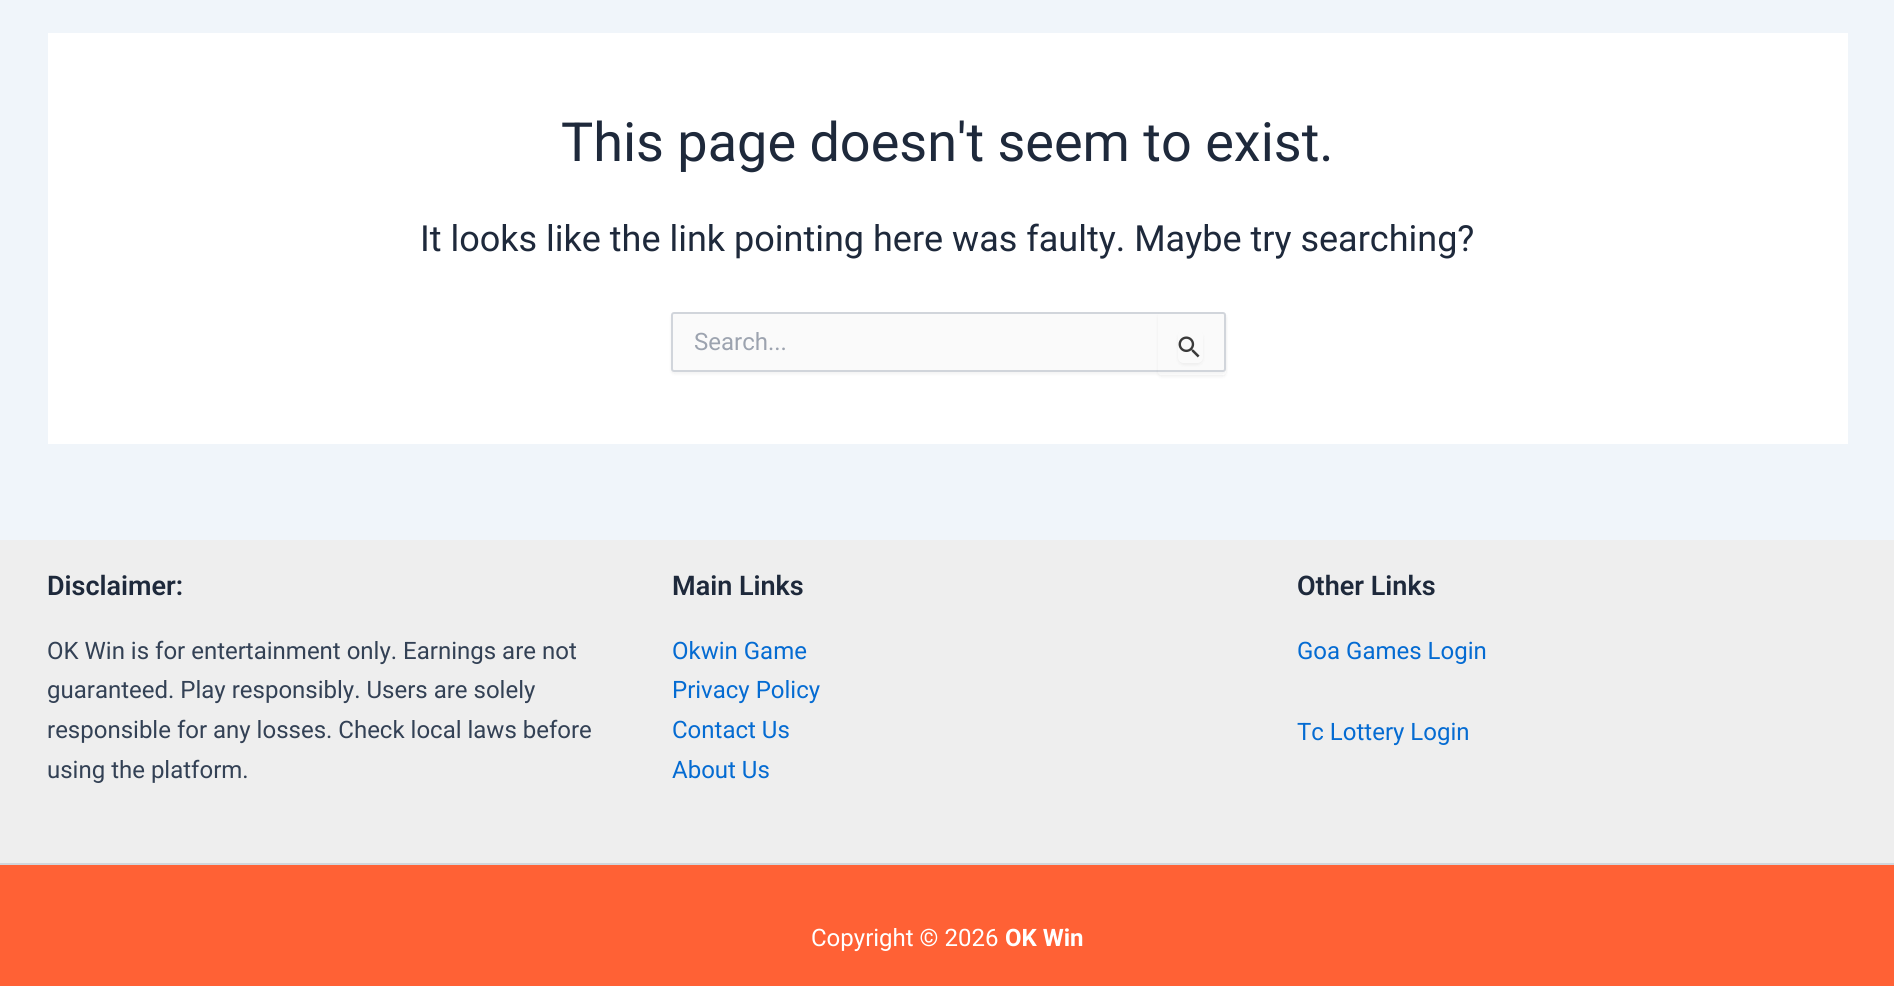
import math
import cairocffi as cairo

surface = cairo.ImageSurface(cairo.FORMAT_RGB24, 1894, 986)
cr = cairo.Context(surface)
options = cairo.FontOptions()
options.set_hint_metrics(cairo.HINT_METRICS_OFF)
options.set_hint_style(cairo.HINT_STYLE_NONE)
cr.set_font_options(options)
cr.set_miter_limit(4)


def use_color(code):
    cr.set_source_rgb(*(v / 255 for v in bytes.fromhex(code[-6:])))


def round_rect(x, y, w, h, r):
    cr.new_sub_path()
    for i, (u, v) in enumerate([(x + w - r, y + h - r), (x + r, y + h - r), (x + r, y + r), (x + w - r, y + r)]):
        cr.arc(u, v, r, i * math.pi / 2, (i + 1) * math.pi / 2)
    cr.close_path()


def shadow(x, y, w, h, r, blur, alpha):
    cr.push_group_with_content(cairo.CONTENT_ALPHA)
    cr.set_operator(cairo.OPERATOR_SOURCE)
    for i in range(15, -16, -2):
        e = blur * i / 6
        if min(w, h) + 2 * e > 0:
            cr.set_source_rgba(0, 0, 0, alpha * math.erfc((i - 1) / 8.5) / 2)
            round_rect(x - e, y - e, w + 2 * e, h + 2 * e, max(0, min(r + e + blur * .6, min(w, h) / 2 + e)))
            cr.fill()
    cr.mask(cr.pop_group())


def picture(path, x, y, w, h):
    cr.save()
    cr.set_source_surface(cairo.ImageSurface.create_from_png(path), x, y)
    cr.rectangle(x, y, w, h)
    cr.fill()
    cr.restore()


use_color("#f0f5fa")
cr.paint()
use_color("#ffffff")
cr.rectangle(48, 33, 1800, 411)
cr.fill()
cr.select_font_face("Roboto")
cr.set_font_size(54)
use_color("#1e293b")
cr.move_to(561, 161)
cr.show_text("This page doesn't seem to exist.")
cr.set_font_size(36)
cr.move_to(420, 251)
cr.show_text("It looks like the link pointing here was faulty. Maybe try searching?")
use_color("#000000")
shadow(671, 314, 555, 60, 3, 1.5, 0.05)
use_color("#fafafa")
round_rect(672, 313, 553, 58, 2)
cr.fill_preserve()
use_color("#d1d5db")
cr.stroke()
cr.set_font_size(24)
use_color("#9ca3af")
cr.move_to(694, 350)
cr.show_text("Search...")
cr.save()
cr.set_fill_rule(cairo.FILL_RULE_EVEN_ODD)
cr.new_path()
cr.move_to(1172, 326)
cr.line_to(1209, 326)
cr.line_to(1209, 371)
cr.line_to(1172, 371)
cr.close_path()
cr.move_to(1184, 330)
cr.line_to(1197, 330)
cr.curve_to(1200.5, 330, 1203, 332.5, 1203, 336)
cr.line_to(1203, 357)
cr.curve_to(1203, 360.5, 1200.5, 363, 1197, 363)
cr.line_to(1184, 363)
cr.curve_to(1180.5, 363, 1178, 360.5, 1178, 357)
cr.line_to(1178, 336)
cr.curve_to(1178, 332.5, 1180.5, 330, 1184, 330)
cr.close_path()
cr.clip()
use_color("#000000")
shadow(1178, 332, 25, 33, 6, 1.5, 0.05)
cr.restore()
picture("img1.png", 1178, 336, 22, 22)
cr.save()
cr.set_fill_rule(cairo.FILL_RULE_EVEN_ODD)
cr.new_path()
cr.move_to(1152, 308)
cr.line_to(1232, 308)
cr.line_to(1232, 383)
cr.line_to(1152, 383)
cr.close_path()
cr.move_to(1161, 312)
cr.line_to(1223, 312)
cr.curve_to(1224.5, 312, 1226, 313.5, 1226, 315)
cr.line_to(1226, 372)
cr.curve_to(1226, 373.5, 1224.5, 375, 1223, 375)
cr.line_to(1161, 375)
cr.curve_to(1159.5, 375, 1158, 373.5, 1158, 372)
cr.line_to(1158, 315)
cr.curve_to(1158, 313.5, 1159.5, 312, 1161, 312)
cr.close_path()
cr.clip()
use_color("#000000")
shadow(1158, 314, 68, 63, 3, 1.5, 0.05)
cr.restore()
use_color("#eeeeee")
cr.rectangle(0, 540, 1894, 323)
cr.fill()
cr.select_font_face("Roboto SemiBold")
cr.set_font_size(27)
use_color("#1e293b")
cr.move_to(47, 595)
cr.show_text("Disclaimer:")
cr.select_font_face("Roboto")
cr.set_font_size(24)
use_color("#334155")
cr.move_to(47, 659)
cr.show_text("OK Win is for entertainment only. Earnings are not")
cr.move_to(47, 698)
cr.show_text("guaranteed. Play responsibly. Users are solely")
cr.move_to(47, 738)
cr.show_text("responsible for any losses. Check local laws before")
cr.move_to(47, 778)
cr.show_text("using the platform.")
cr.select_font_face("Roboto SemiBold")
cr.set_font_size(27)
use_color("#1e293b")
cr.move_to(672, 595)
cr.show_text("Main Links")
cr.select_font_face("Roboto")
cr.set_font_size(24)
use_color("#046bd2")
cr.move_to(672, 659)
cr.show_text("Okwin Game")
cr.move_to(672, 698)
cr.show_text("Privacy Policy")
cr.move_to(672, 738)
cr.show_text("Contact Us")
cr.move_to(672, 778)
cr.show_text("About Us")
cr.select_font_face("Roboto SemiBold")
cr.set_font_size(27)
use_color("#1e293b")
cr.move_to(1297, 595)
cr.show_text("Other Links")
cr.select_font_face("Roboto")
cr.set_font_size(24)
use_color("#046bd2")
cr.move_to(1297, 659)
cr.show_text("Goa Games Login")
cr.move_to(1297, 740)
cr.show_text("Tc Lottery Login")
use_color("#ff6135")
cr.rectangle(0, 865, 1894, 121)
cr.fill()
use_color("#d1d5db")
cr.rectangle(0, 863, 1894, 2)
cr.fill()
use_color("#ffffff")
cr.move_to(811, 946)
cr.show_text("Copyright © 2026")
cr.select_font_face("Roboto", cairo.FONT_SLANT_NORMAL, cairo.FONT_WEIGHT_BOLD)
cr.move_to(1005, 946)
cr.show_text("OK Win")
surface.write_to_png("result.png")
